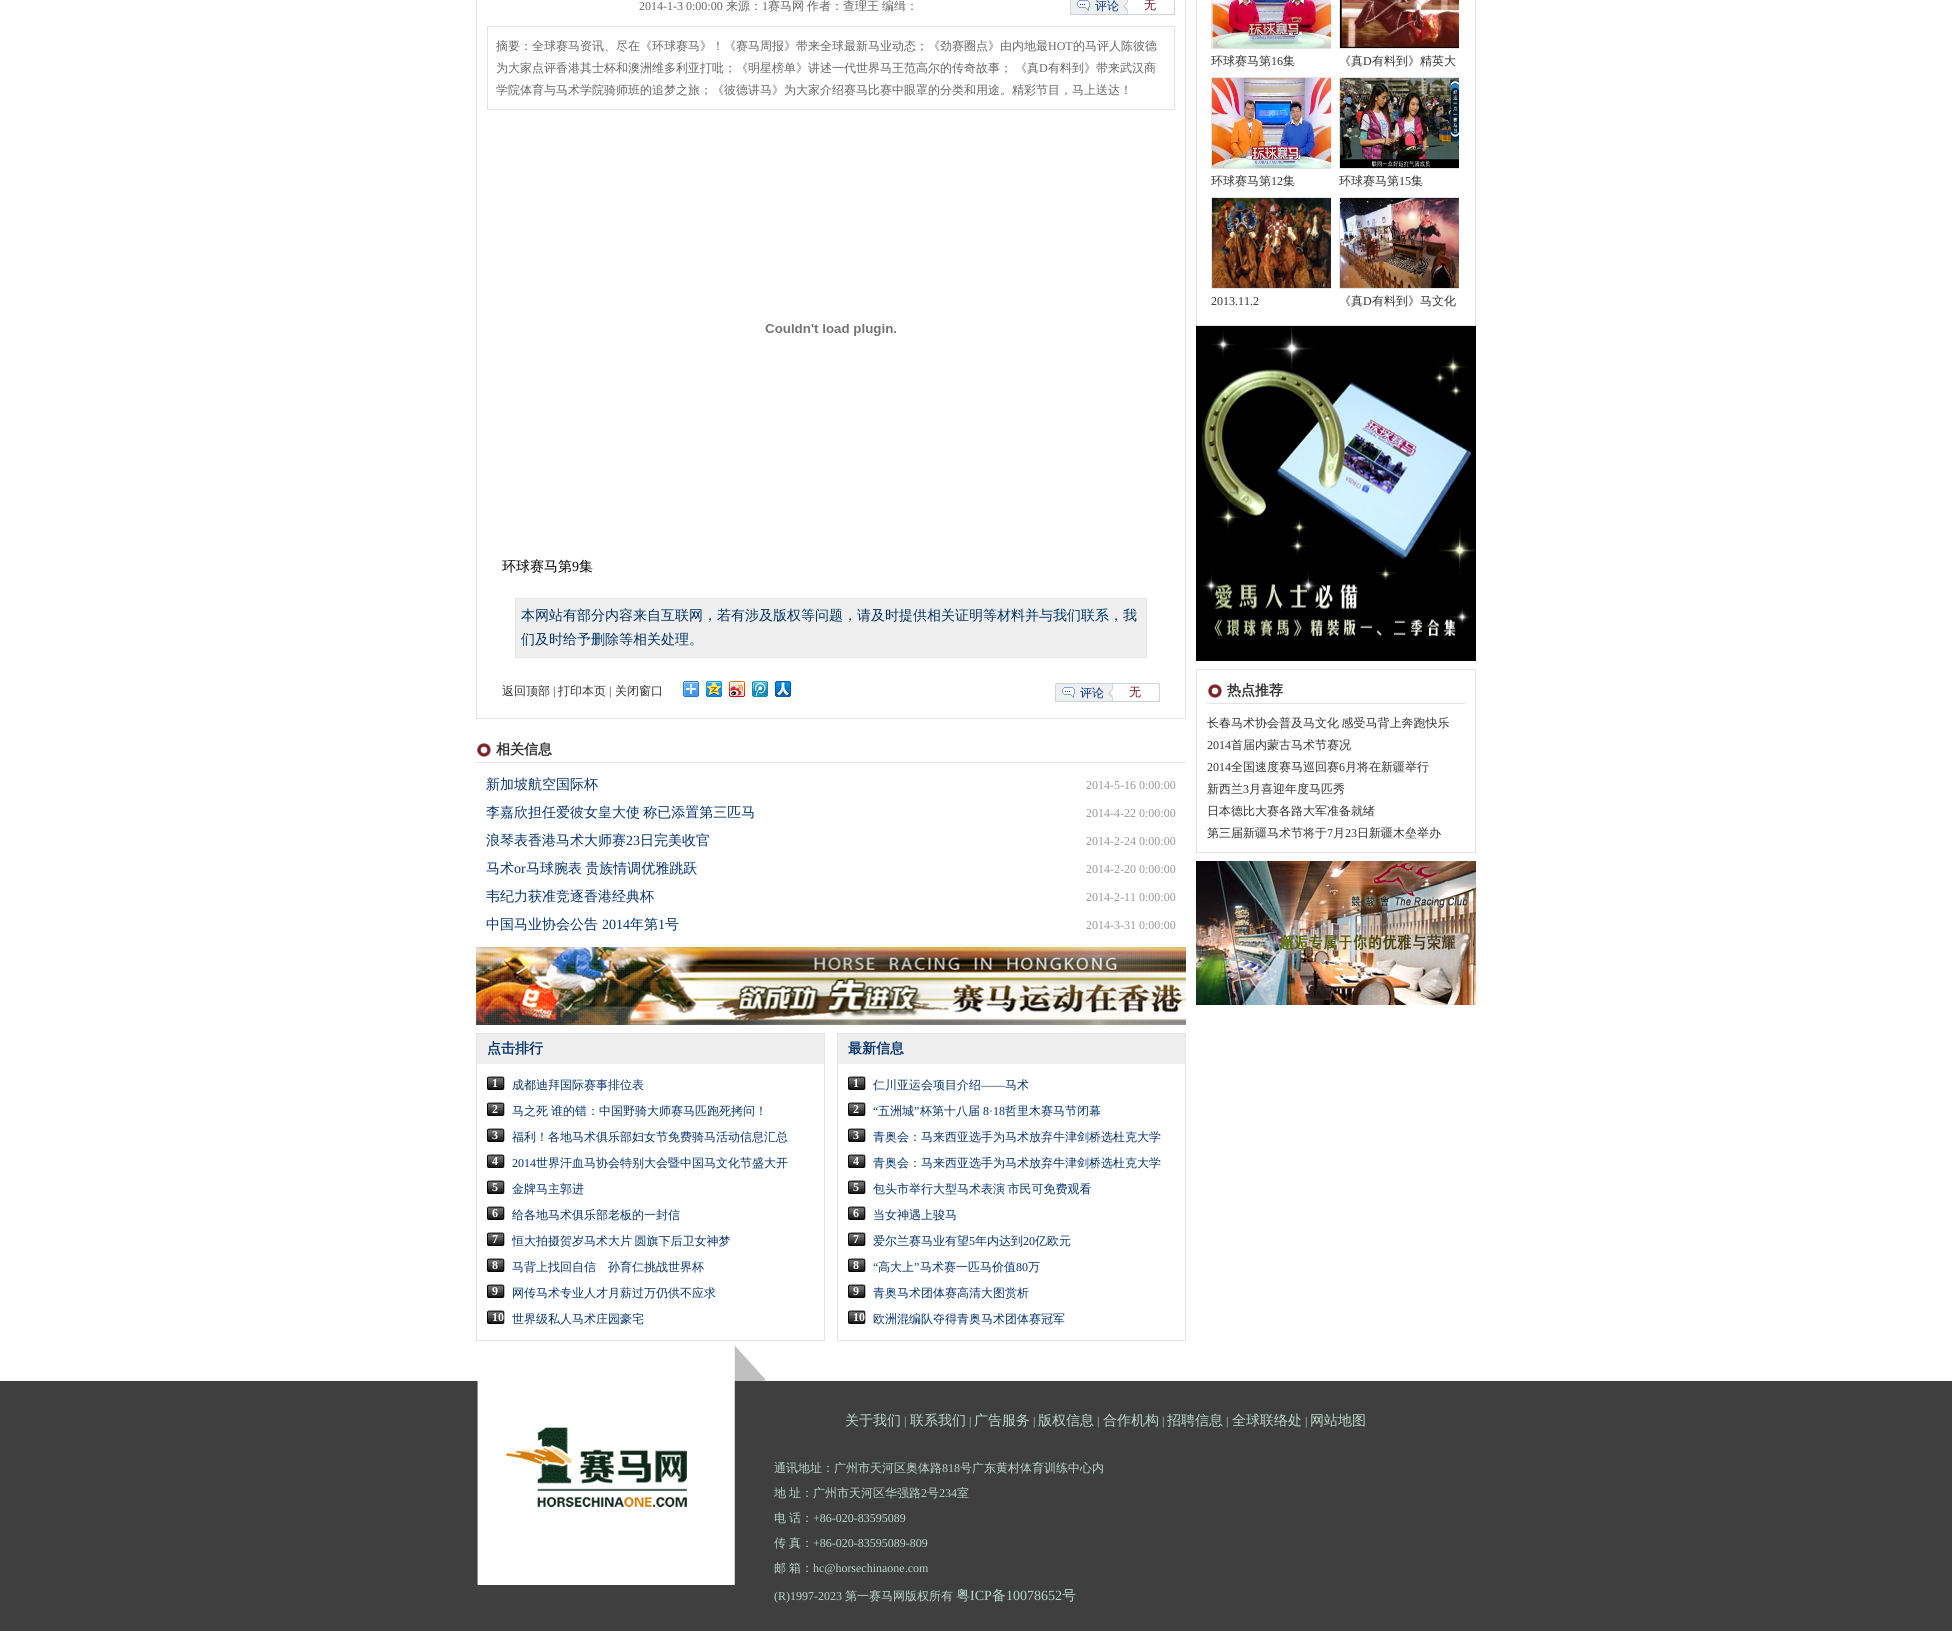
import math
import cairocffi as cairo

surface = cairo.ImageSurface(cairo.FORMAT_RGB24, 1952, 1631)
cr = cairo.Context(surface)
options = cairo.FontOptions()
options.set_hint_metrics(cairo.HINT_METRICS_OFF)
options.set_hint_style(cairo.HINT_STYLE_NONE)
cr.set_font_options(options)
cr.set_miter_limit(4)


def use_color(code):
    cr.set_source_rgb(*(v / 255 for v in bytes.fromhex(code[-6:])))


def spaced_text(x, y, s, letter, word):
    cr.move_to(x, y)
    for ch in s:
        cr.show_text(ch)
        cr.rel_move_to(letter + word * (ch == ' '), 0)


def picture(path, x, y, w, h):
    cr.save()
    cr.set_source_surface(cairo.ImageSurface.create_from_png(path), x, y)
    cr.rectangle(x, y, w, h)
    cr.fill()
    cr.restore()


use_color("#ffffff")
cr.paint()
cr.rectangle(476.5, -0.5, 709, 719)
use_color("#e4e4e4")
cr.set_line_width(1)
cr.stroke()
cr.select_font_face("Liberation Serif")
cr.set_font_size(12)
use_color("#666666")
cr.move_to(639, 10)
cr.show_text("2014-1-3 0:00:00")
cr.select_font_face("WenQuanYi Zen Hei Medium")
cr.move_to(726, 10)
cr.show_text("来源：")
cr.select_font_face("Liberation Serif")
cr.move_to(762, 10)
cr.show_text("1")
cr.select_font_face("WenQuanYi Zen Hei Medium")
cr.move_to(768, 10)
cr.show_text("赛马网")
cr.move_to(807, 10)
cr.show_text("作者：查理王")
cr.move_to(882, 10)
cr.show_text("编缉：")
picture("img1.png", 1070, 0, 105, 15)
use_color("#003399")
cr.move_to(1095, 10)
cr.show_text("评论")
use_color("#76161b")
cr.move_to(1144, 9)
cr.show_text("无")
cr.rectangle(487.5, 26.5, 687, 83)
use_color("#e4e4e4")
cr.stroke()
use_color("#666666")
cr.move_to(496, 50)
cr.show_text("摘要：全球赛马资讯、尽在《环球赛马》！《赛马周报》带来全球最新马业动态；《劲赛圈点》由内地最")
cr.select_font_face("Liberation Serif")
cr.move_to(1048, 50)
cr.show_text("HOT")
cr.select_font_face("WenQuanYi Zen Hei Medium")
cr.move_to(1073, 50)
cr.show_text("的马评人陈彼德")
cr.move_to(496, 72)
cr.show_text("为大家点评香港其士杯和澳洲维多利亚打吡；《明星榜单》讲述一代世界马王范高尔的传奇故事；")
cr.move_to(1015, 72)
cr.show_text("《真")
cr.select_font_face("Liberation Serif")
cr.move_to(1039, 72)
cr.show_text("D")
cr.select_font_face("WenQuanYi Zen Hei Medium")
cr.move_to(1048, 72)
cr.show_text("有料到》带来武汉商")
cr.move_to(496, 94)
cr.show_text("学院体育与马术学院骑师班的追梦之旅；《彼德讲马》为大家介绍赛马比赛中眼罩的分类和用途。精彩节目，马上送达！")
picture("img2.png", 765, 324, 131, 12)
cr.set_font_size(14)
use_color("#000000")
cr.move_to(502, 571)
cr.show_text("环球赛马第")
cr.select_font_face("Liberation Serif")
cr.move_to(572, 571)
cr.show_text("9")
cr.select_font_face("WenQuanYi Zen Hei Medium")
cr.move_to(579, 571)
cr.show_text("集")
use_color("#efefef")
cr.rectangle(515.5, 598.5, 631, 59)
cr.fill_preserve()
use_color("#e4e4e4")
cr.stroke()
use_color("#003366")
cr.move_to(521, 620)
cr.show_text("本网站有部分内容来自互联网，若有涉及版权等问题，请及时提供相关证明等材料并与我们联系，我")
cr.move_to(521, 644)
cr.show_text("们及时给予删除等相关处理。")
cr.set_font_size(12)
use_color("#333333")
cr.move_to(502, 695)
cr.show_text("返回顶部")
cr.select_font_face("Liberation Serif")
cr.move_to(553, 695)
cr.show_text("|")
cr.select_font_face("WenQuanYi Zen Hei Medium")
cr.move_to(558, 695)
cr.show_text("打印本页")
cr.select_font_face("Liberation Serif")
cr.move_to(609, 695)
cr.show_text("|")
cr.select_font_face("WenQuanYi Zen Hei Medium")
cr.move_to(615, 695)
cr.show_text("关闭窗口")
picture("img3.png", 683, 681, 16, 16)
picture("img4.png", 706, 681, 16, 16)
picture("img5.png", 729, 681, 16, 16)
picture("img6.png", 752, 681, 16, 16)
picture("img7.png", 775, 681, 16, 16)
picture("img8.png", 1055, 683, 105, 19)
use_color("#003399")
cr.move_to(1080, 697)
cr.show_text("评论")
use_color("#76161b")
cr.move_to(1129, 696)
cr.show_text("无")
picture("img9.png", 477, 743, 14, 14)
use_color("#e4e4e4")
cr.rectangle(476, 762, 710, 1)
cr.fill()
cr.select_font_face("WenQuanYi Zen Hei", cairo.FONT_SLANT_NORMAL, cairo.FONT_WEIGHT_BOLD)
cr.set_font_size(14)
use_color("#333333")
cr.move_to(496, 754)
cr.show_text("相关信息")
cr.select_font_face("WenQuanYi Zen Hei Medium")
use_color("#06346f")
cr.move_to(486, 789)
cr.show_text("新加坡航空国际杯")
cr.select_font_face("Liberation Serif")
cr.set_font_size(12)
use_color("#999999")
cr.move_to(1086, 789)
cr.show_text("2014-5-16 0:00:00")
cr.select_font_face("WenQuanYi Zen Hei Medium")
cr.set_font_size(14)
use_color("#06346f")
spaced_text(486, 817, "李嘉欣担任爱彼女皇大使 称已添置第三匹马", 0, -1)
cr.select_font_face("Liberation Serif")
cr.set_font_size(12)
use_color("#999999")
cr.move_to(1086, 817)
cr.show_text("2014-4-22 0:00:00")
cr.select_font_face("WenQuanYi Zen Hei Medium")
cr.set_font_size(14)
use_color("#06346f")
cr.move_to(486, 845)
cr.show_text("浪琴表香港马术大师赛")
cr.select_font_face("Liberation Serif")
cr.move_to(626, 845)
cr.show_text("23")
cr.select_font_face("WenQuanYi Zen Hei Medium")
cr.move_to(640, 845)
cr.show_text("日完美收官")
cr.select_font_face("Liberation Serif")
cr.set_font_size(12)
use_color("#999999")
cr.move_to(1086, 845)
cr.show_text("2014-2-24 0:00:00")
cr.select_font_face("WenQuanYi Zen Hei Medium")
cr.set_font_size(14)
use_color("#06346f")
cr.move_to(486, 873)
cr.show_text("马术")
cr.select_font_face("Liberation Serif")
cr.move_to(514, 873)
cr.show_text("or")
cr.select_font_face("WenQuanYi Zen Hei Medium")
spaced_text(526, 873, "马球腕表 贵族情调优雅跳跃", 0, -1)
cr.select_font_face("Liberation Serif")
cr.set_font_size(12)
use_color("#999999")
cr.move_to(1086, 873)
cr.show_text("2014-2-20 0:00:00")
cr.select_font_face("WenQuanYi Zen Hei Medium")
cr.set_font_size(14)
use_color("#06346f")
cr.move_to(486, 901)
cr.show_text("韦纪力获准竞逐香港经典杯")
cr.select_font_face("Liberation Serif")
cr.set_font_size(12)
use_color("#999999")
cr.move_to(1086, 901)
cr.show_text("2014-2-11 0:00:00")
cr.select_font_face("WenQuanYi Zen Hei Medium")
cr.set_font_size(14)
use_color("#06346f")
cr.move_to(486, 929)
cr.show_text("中国马业协会公告")
cr.select_font_face("Liberation Serif")
cr.move_to(602, 929)
cr.show_text("2014")
cr.select_font_face("WenQuanYi Zen Hei Medium")
cr.move_to(630, 929)
cr.show_text("年第")
cr.select_font_face("Liberation Serif")
cr.move_to(658, 929)
cr.show_text("1")
cr.select_font_face("WenQuanYi Zen Hei Medium")
cr.move_to(665, 929)
cr.show_text("号")
cr.select_font_face("Liberation Serif")
cr.set_font_size(12)
use_color("#999999")
cr.move_to(1086, 929)
cr.show_text("2014-3-31 0:00:00")
picture("img10.png", 476, 947, 710, 78)
cr.rectangle(476.5, 1033.5, 348, 307)
use_color("#e4e4e4")
cr.stroke()
use_color("#efefef")
cr.rectangle(477, 1034, 347, 30)
cr.fill()
cr.select_font_face("WenQuanYi Zen Hei", cairo.FONT_SLANT_NORMAL, cairo.FONT_WEIGHT_BOLD)
cr.set_font_size(14)
use_color("#06346f")
cr.move_to(487, 1053)
cr.show_text("点击排行")
picture("img11.png", 487, 1076, 18, 14)
cr.select_font_face("Liberation Serif", cairo.FONT_SLANT_NORMAL, cairo.FONT_WEIGHT_BOLD)
cr.set_font_size(12)
use_color("#ffffff")
cr.move_to(492, 1087)
cr.show_text("1")
cr.select_font_face("WenQuanYi Zen Hei Medium")
use_color("#06346f")
cr.move_to(512, 1089)
cr.show_text("成都迪拜国际赛事排位表")
picture("img11.png", 487, 1102, 18, 14)
cr.select_font_face("Liberation Serif", cairo.FONT_SLANT_NORMAL, cairo.FONT_WEIGHT_BOLD)
use_color("#ffffff")
cr.move_to(492, 1113)
cr.show_text("2")
cr.select_font_face("WenQuanYi Zen Hei Medium")
use_color("#06346f")
cr.move_to(512, 1115)
cr.show_text("马之死")
cr.move_to(551, 1115)
cr.show_text("谁的错：中国野骑大师赛马匹跑死拷问！")
picture("img11.png", 487, 1128, 18, 14)
cr.select_font_face("Liberation Serif", cairo.FONT_SLANT_NORMAL, cairo.FONT_WEIGHT_BOLD)
use_color("#ffffff")
cr.move_to(492, 1139)
cr.show_text("3")
cr.select_font_face("WenQuanYi Zen Hei Medium")
use_color("#06346f")
cr.move_to(512, 1141)
cr.show_text("福利！各地马术俱乐部妇女节免费骑马活动信息汇总")
picture("img11.png", 487, 1154, 18, 14)
cr.select_font_face("Liberation Serif", cairo.FONT_SLANT_NORMAL, cairo.FONT_WEIGHT_BOLD)
use_color("#ffffff")
cr.move_to(492, 1165)
cr.show_text("4")
cr.select_font_face("Liberation Serif")
use_color("#06346f")
cr.move_to(512, 1167)
cr.show_text("2014")
cr.select_font_face("WenQuanYi Zen Hei Medium")
cr.move_to(536, 1167)
cr.show_text("世界汗血马协会特别大会暨中国马文化节盛大开")
picture("img11.png", 487, 1180, 18, 14)
cr.select_font_face("Liberation Serif", cairo.FONT_SLANT_NORMAL, cairo.FONT_WEIGHT_BOLD)
use_color("#ffffff")
cr.move_to(492, 1191)
cr.show_text("5")
cr.select_font_face("WenQuanYi Zen Hei Medium")
use_color("#06346f")
cr.move_to(512, 1193)
cr.show_text("金牌马主郭进")
picture("img11.png", 487, 1206, 18, 14)
cr.select_font_face("Liberation Serif", cairo.FONT_SLANT_NORMAL, cairo.FONT_WEIGHT_BOLD)
use_color("#ffffff")
cr.move_to(492, 1217)
cr.show_text("6")
cr.select_font_face("WenQuanYi Zen Hei Medium")
use_color("#06346f")
cr.move_to(512, 1219)
cr.show_text("给各地马术俱乐部老板的一封信")
picture("img11.png", 487, 1232, 18, 14)
cr.select_font_face("Liberation Serif", cairo.FONT_SLANT_NORMAL, cairo.FONT_WEIGHT_BOLD)
use_color("#ffffff")
cr.move_to(492, 1243)
cr.show_text("7")
cr.select_font_face("WenQuanYi Zen Hei Medium")
use_color("#06346f")
spaced_text(512, 1245, "恒大拍摄贺岁马术大片 圆旗下后卫女神梦", 0, -1)
picture("img11.png", 487, 1258, 18, 14)
cr.select_font_face("Liberation Serif", cairo.FONT_SLANT_NORMAL, cairo.FONT_WEIGHT_BOLD)
use_color("#ffffff")
cr.move_to(492, 1269)
cr.show_text("8")
cr.select_font_face("WenQuanYi Zen Hei Medium")
use_color("#06346f")
cr.move_to(512, 1271)
cr.show_text("马背上找回自信　孙育仁挑战世界杯")
picture("img11.png", 487, 1284, 18, 14)
cr.select_font_face("Liberation Serif", cairo.FONT_SLANT_NORMAL, cairo.FONT_WEIGHT_BOLD)
use_color("#ffffff")
cr.move_to(492, 1295)
cr.show_text("9")
cr.select_font_face("WenQuanYi Zen Hei Medium")
use_color("#06346f")
cr.move_to(512, 1297)
cr.show_text("网传马术专业人才月薪过万仍供不应求")
picture("img11.png", 487, 1310, 18, 14)
cr.select_font_face("Liberation Serif", cairo.FONT_SLANT_NORMAL, cairo.FONT_WEIGHT_BOLD)
use_color("#ffffff")
cr.move_to(492, 1321)
cr.show_text("10")
cr.select_font_face("WenQuanYi Zen Hei Medium")
use_color("#06346f")
cr.move_to(512, 1323)
cr.show_text("世界级私人马术庄园豪宅")
cr.rectangle(837.5, 1033.5, 348, 307)
use_color("#e4e4e4")
cr.stroke()
use_color("#efefef")
cr.rectangle(838, 1034, 347, 30)
cr.fill()
cr.select_font_face("WenQuanYi Zen Hei", cairo.FONT_SLANT_NORMAL, cairo.FONT_WEIGHT_BOLD)
cr.set_font_size(14)
use_color("#06346f")
cr.move_to(848, 1053)
cr.show_text("最新信息")
picture("img11.png", 848, 1076, 18, 14)
cr.select_font_face("Liberation Serif", cairo.FONT_SLANT_NORMAL, cairo.FONT_WEIGHT_BOLD)
cr.set_font_size(12)
use_color("#ffffff")
cr.move_to(853, 1087)
cr.show_text("1")
cr.select_font_face("WenQuanYi Zen Hei Medium")
use_color("#06346f")
cr.move_to(873, 1089)
cr.show_text("仁川亚运会项目介绍")
cr.select_font_face("Liberation Serif")
cr.move_to(981, 1089)
cr.show_text("——")
cr.select_font_face("WenQuanYi Zen Hei Medium")
cr.move_to(1005, 1089)
cr.show_text("马术")
picture("img11.png", 848, 1102, 18, 14)
cr.select_font_face("Liberation Serif", cairo.FONT_SLANT_NORMAL, cairo.FONT_WEIGHT_BOLD)
use_color("#ffffff")
cr.move_to(853, 1113)
cr.show_text("2")
cr.select_font_face("Liberation Serif")
use_color("#06346f")
cr.move_to(873, 1115)
cr.show_text("“")
cr.select_font_face("WenQuanYi Zen Hei Medium")
cr.move_to(878, 1115)
cr.show_text("五洲城")
cr.select_font_face("Liberation Serif")
cr.move_to(914, 1115)
cr.show_text("”")
cr.select_font_face("WenQuanYi Zen Hei Medium")
cr.move_to(920, 1115)
cr.show_text("杯第十八届")
cr.select_font_face("Liberation Serif")
cr.move_to(983, 1115)
cr.show_text("8·18")
cr.select_font_face("WenQuanYi Zen Hei Medium")
cr.move_to(1005, 1115)
cr.show_text("哲里木赛马节闭幕")
picture("img11.png", 848, 1128, 18, 14)
cr.select_font_face("Liberation Serif", cairo.FONT_SLANT_NORMAL, cairo.FONT_WEIGHT_BOLD)
use_color("#ffffff")
cr.move_to(853, 1139)
cr.show_text("3")
cr.select_font_face("WenQuanYi Zen Hei Medium")
use_color("#06346f")
cr.move_to(873, 1141)
cr.show_text("青奥会：马来西亚选手为马术放弃牛津剑桥选杜克大学")
picture("img11.png", 848, 1154, 18, 14)
cr.select_font_face("Liberation Serif", cairo.FONT_SLANT_NORMAL, cairo.FONT_WEIGHT_BOLD)
use_color("#ffffff")
cr.move_to(853, 1165)
cr.show_text("4")
cr.select_font_face("WenQuanYi Zen Hei Medium")
use_color("#06346f")
cr.move_to(873, 1167)
cr.show_text("青奥会：马来西亚选手为马术放弃牛津剑桥选杜克大学")
picture("img11.png", 848, 1180, 18, 14)
cr.select_font_face("Liberation Serif", cairo.FONT_SLANT_NORMAL, cairo.FONT_WEIGHT_BOLD)
use_color("#ffffff")
cr.move_to(853, 1191)
cr.show_text("5")
cr.select_font_face("WenQuanYi Zen Hei Medium")
use_color("#06346f")
spaced_text(873, 1193, "包头市举行大型马术表演 市民可免费观看", 0, -1)
picture("img11.png", 848, 1206, 18, 14)
cr.select_font_face("Liberation Serif", cairo.FONT_SLANT_NORMAL, cairo.FONT_WEIGHT_BOLD)
use_color("#ffffff")
cr.move_to(853, 1217)
cr.show_text("6")
cr.select_font_face("WenQuanYi Zen Hei Medium")
use_color("#06346f")
cr.move_to(873, 1219)
cr.show_text("当女神遇上骏马")
picture("img11.png", 848, 1232, 18, 14)
cr.select_font_face("Liberation Serif", cairo.FONT_SLANT_NORMAL, cairo.FONT_WEIGHT_BOLD)
use_color("#ffffff")
cr.move_to(853, 1243)
cr.show_text("7")
cr.select_font_face("WenQuanYi Zen Hei Medium")
use_color("#06346f")
cr.move_to(873, 1245)
cr.show_text("爱尔兰赛马业有望")
cr.select_font_face("Liberation Serif")
cr.move_to(969, 1245)
cr.show_text("5")
cr.select_font_face("WenQuanYi Zen Hei Medium")
cr.move_to(975, 1245)
cr.show_text("年内达到")
cr.select_font_face("Liberation Serif")
cr.move_to(1023, 1245)
cr.show_text("20")
cr.select_font_face("WenQuanYi Zen Hei Medium")
cr.move_to(1035, 1245)
cr.show_text("亿欧元")
picture("img11.png", 848, 1258, 18, 14)
cr.select_font_face("Liberation Serif", cairo.FONT_SLANT_NORMAL, cairo.FONT_WEIGHT_BOLD)
use_color("#ffffff")
cr.move_to(853, 1269)
cr.show_text("8")
cr.select_font_face("Liberation Serif")
use_color("#06346f")
cr.move_to(873, 1271)
cr.show_text("“")
cr.select_font_face("WenQuanYi Zen Hei Medium")
cr.move_to(878, 1271)
cr.show_text("高大上")
cr.select_font_face("Liberation Serif")
cr.move_to(914, 1271)
cr.show_text("”")
cr.select_font_face("WenQuanYi Zen Hei Medium")
cr.move_to(920, 1271)
cr.show_text("马术赛一匹马价值")
cr.select_font_face("Liberation Serif")
cr.move_to(1016, 1271)
cr.show_text("80")
cr.select_font_face("WenQuanYi Zen Hei Medium")
cr.move_to(1028, 1271)
cr.show_text("万")
picture("img11.png", 848, 1284, 18, 14)
cr.select_font_face("Liberation Serif", cairo.FONT_SLANT_NORMAL, cairo.FONT_WEIGHT_BOLD)
use_color("#ffffff")
cr.move_to(853, 1295)
cr.show_text("9")
cr.select_font_face("WenQuanYi Zen Hei Medium")
use_color("#06346f")
cr.move_to(873, 1297)
cr.show_text("青奥马术团体赛高清大图赏析")
picture("img11.png", 848, 1310, 18, 14)
cr.select_font_face("Liberation Serif", cairo.FONT_SLANT_NORMAL, cairo.FONT_WEIGHT_BOLD)
use_color("#ffffff")
cr.move_to(853, 1321)
cr.show_text("10")
cr.select_font_face("WenQuanYi Zen Hei Medium")
use_color("#06346f")
cr.move_to(873, 1323)
cr.show_text("欧洲混编队夺得青奥马术团体赛冠军")
cr.rectangle(1196.5, -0.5, 279, 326)
use_color("#e4e4e4")
cr.stroke()
cr.save()
cr.rectangle(1211, 0, 120, 77)
cr.clip()
cr.rectangle(1211.5, -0.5, 121, 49)
cr.stroke()
cr.restore()
picture("img12.png", 1212, 0, 119, 48)
use_color("#333333")
cr.move_to(1211, 65)
cr.show_text("环球赛马第")
cr.select_font_face("Liberation Serif")
cr.move_to(1271, 65)
cr.show_text("16")
cr.select_font_face("WenQuanYi Zen Hei Medium")
cr.move_to(1283, 65)
cr.show_text("集")
cr.save()
cr.rectangle(1339, 0, 120, 77)
cr.clip()
cr.rectangle(1339.5, -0.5, 121, 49)
use_color("#e4e4e4")
cr.stroke()
cr.restore()
picture("img13.png", 1340, 0, 119, 48)
cr.move_to(1339, 65)
cr.show_text("《真")
cr.select_font_face("Liberation Serif")
cr.move_to(1363, 65)
cr.show_text("D")
cr.select_font_face("WenQuanYi Zen Hei Medium")
cr.move_to(1372, 65)
cr.show_text("有料到》精英大")
cr.save()
cr.rectangle(1211, 77, 120, 120)
cr.clip()
cr.rectangle(1211.5, 77.5, 121, 91)
use_color("#e4e4e4")
cr.stroke()
cr.restore()
picture("img14.png", 1212, 78, 119, 90)
cr.move_to(1211, 185)
cr.show_text("环球赛马第")
cr.select_font_face("Liberation Serif")
cr.move_to(1271, 185)
cr.show_text("12")
cr.select_font_face("WenQuanYi Zen Hei Medium")
cr.move_to(1283, 185)
cr.show_text("集")
cr.save()
cr.rectangle(1339, 77, 120, 120)
cr.clip()
cr.rectangle(1339.5, 77.5, 121, 91)
use_color("#e4e4e4")
cr.stroke()
cr.restore()
picture("img15.png", 1340, 78, 119, 90)
cr.move_to(1339, 185)
cr.show_text("环球赛马第")
cr.select_font_face("Liberation Serif")
cr.move_to(1399, 185)
cr.show_text("15")
cr.select_font_face("WenQuanYi Zen Hei Medium")
cr.move_to(1411, 185)
cr.show_text("集")
cr.save()
cr.rectangle(1211, 197, 120, 120)
cr.clip()
cr.rectangle(1211.5, 197.5, 121, 91)
use_color("#e4e4e4")
cr.stroke()
cr.restore()
picture("img16.png", 1212, 198, 119, 90)
cr.select_font_face("Liberation Serif")
cr.move_to(1211, 305)
cr.show_text("2013.11.2")
cr.save()
cr.rectangle(1339, 197, 120, 120)
cr.clip()
cr.rectangle(1339.5, 197.5, 121, 91)
use_color("#e4e4e4")
cr.stroke()
cr.restore()
picture("img17.png", 1340, 198, 119, 90)
cr.select_font_face("WenQuanYi Zen Hei Medium")
cr.move_to(1339, 305)
cr.show_text("《真")
cr.select_font_face("Liberation Serif")
cr.move_to(1363, 305)
cr.show_text("D")
cr.select_font_face("WenQuanYi Zen Hei Medium")
cr.move_to(1372, 305)
cr.show_text("有料到》马文化")
picture("img18.png", 1196, 326, 280, 335)
cr.rectangle(1196.5, 669.5, 279, 183)
use_color("#e4e4e4")
cr.stroke()
picture("img9.png", 1208, 684, 14, 14)
cr.rectangle(1207, 703, 258, 1)
cr.fill()
cr.select_font_face("WenQuanYi Zen Hei", cairo.FONT_SLANT_NORMAL, cairo.FONT_WEIGHT_BOLD)
cr.set_font_size(14)
use_color("#333333")
cr.move_to(1227, 695)
cr.show_text("热点推荐")
cr.select_font_face("WenQuanYi Zen Hei Medium")
cr.set_font_size(12)
spaced_text(1207, 727, "长春马术协会普及马文化 感受马背上奔跑快乐", 0, -1)
cr.select_font_face("Liberation Serif")
cr.move_to(1207, 749)
cr.show_text("2014")
cr.select_font_face("WenQuanYi Zen Hei Medium")
cr.move_to(1231, 749)
cr.show_text("首届内蒙古马术节赛况")
cr.select_font_face("Liberation Serif")
cr.move_to(1207, 771)
cr.show_text("2014")
cr.select_font_face("WenQuanYi Zen Hei Medium")
cr.move_to(1231, 771)
cr.show_text("全国速度赛马巡回赛")
cr.select_font_face("Liberation Serif")
cr.move_to(1339, 771)
cr.show_text("6")
cr.select_font_face("WenQuanYi Zen Hei Medium")
cr.move_to(1345, 771)
cr.show_text("月将在新疆举行")
cr.move_to(1207, 793)
cr.show_text("新西兰")
cr.select_font_face("Liberation Serif")
cr.move_to(1243, 793)
cr.show_text("3")
cr.select_font_face("WenQuanYi Zen Hei Medium")
cr.move_to(1249, 793)
cr.show_text("月喜迎年度马匹秀")
cr.move_to(1207, 815)
cr.show_text("日本德比大赛各路大军准备就绪")
cr.move_to(1207, 837)
cr.show_text("第三届新疆马术节将于")
cr.select_font_face("Liberation Serif")
cr.move_to(1327, 837)
cr.show_text("7")
cr.select_font_face("WenQuanYi Zen Hei Medium")
cr.move_to(1333, 837)
cr.show_text("月")
cr.select_font_face("Liberation Serif")
cr.move_to(1345, 837)
cr.show_text("23")
cr.select_font_face("WenQuanYi Zen Hei Medium")
cr.move_to(1357, 837)
cr.show_text("日新疆木垒举办")
picture("img19.png", 1196, 861, 280, 144)
use_color("#3f3f3f")
cr.rectangle(0, 1381, 1952, 250)
cr.fill()
picture("img20.png", 477, 1345, 289, 240)
cr.set_font_size(14)
use_color("#bbd7cb")
cr.move_to(845, 1425)
cr.show_text("关于我们")
cr.select_font_face("Liberation Serif")
cr.set_font_size(12)
cr.move_to(904, 1425)
cr.show_text("|")
cr.select_font_face("WenQuanYi Zen Hei Medium")
cr.set_font_size(14)
cr.move_to(910, 1425)
cr.show_text("联系我们")
cr.select_font_face("Liberation Serif")
cr.set_font_size(12)
cr.move_to(969, 1425)
cr.show_text("|")
cr.select_font_face("WenQuanYi Zen Hei Medium")
cr.set_font_size(14)
cr.move_to(974, 1425)
cr.show_text("广告服务")
cr.select_font_face("Liberation Serif")
cr.set_font_size(12)
cr.move_to(1033, 1425)
cr.show_text("|")
cr.select_font_face("WenQuanYi Zen Hei Medium")
cr.set_font_size(14)
cr.move_to(1038, 1425)
cr.show_text("版权信息")
cr.select_font_face("Liberation Serif")
cr.set_font_size(12)
cr.move_to(1097, 1425)
cr.show_text("|")
cr.select_font_face("WenQuanYi Zen Hei Medium")
cr.set_font_size(14)
cr.move_to(1103, 1425)
cr.show_text("合作机构")
cr.select_font_face("Liberation Serif")
cr.set_font_size(12)
cr.move_to(1162, 1425)
cr.show_text("|")
cr.select_font_face("WenQuanYi Zen Hei Medium")
cr.set_font_size(14)
cr.move_to(1167, 1425)
cr.show_text("招聘信息")
cr.select_font_face("Liberation Serif")
cr.set_font_size(12)
cr.move_to(1226, 1425)
cr.show_text("|")
cr.select_font_face("WenQuanYi Zen Hei Medium")
cr.set_font_size(14)
cr.move_to(1232, 1425)
cr.show_text("全球联络处")
cr.select_font_face("Liberation Serif")
cr.set_font_size(12)
cr.move_to(1305, 1425)
cr.show_text("|")
cr.select_font_face("WenQuanYi Zen Hei Medium")
cr.set_font_size(14)
cr.move_to(1310, 1425)
cr.show_text("网站地图")
cr.set_font_size(12)
cr.move_to(774, 1472)
cr.show_text("通讯地址：广州市天河区奥体路")
cr.select_font_face("Liberation Serif")
cr.move_to(942, 1472)
cr.show_text("818")
cr.select_font_face("WenQuanYi Zen Hei Medium")
cr.move_to(960, 1472)
cr.show_text("号广东黄村体育训练中心内")
cr.move_to(774, 1497)
cr.show_text("地")
cr.move_to(789, 1497)
cr.show_text("址：广州市天河区华强路")
cr.select_font_face("Liberation Serif")
cr.move_to(921, 1497)
cr.show_text("2")
cr.select_font_face("WenQuanYi Zen Hei Medium")
cr.move_to(927, 1497)
cr.show_text("号")
cr.select_font_face("Liberation Serif")
cr.move_to(939, 1497)
cr.show_text("234")
cr.select_font_face("WenQuanYi Zen Hei Medium")
cr.move_to(957, 1497)
cr.show_text("室")
cr.move_to(774, 1522)
cr.show_text("电")
cr.move_to(789, 1522)
cr.show_text("话：")
cr.select_font_face("Liberation Serif")
cr.move_to(813, 1522)
cr.show_text("+86-020-83595089")
cr.select_font_face("WenQuanYi Zen Hei Medium")
cr.move_to(774, 1547)
cr.show_text("传")
cr.move_to(789, 1547)
cr.show_text("真：")
cr.select_font_face("Liberation Serif")
cr.move_to(813, 1547)
cr.show_text("+86-020-83595089-809")
cr.select_font_face("WenQuanYi Zen Hei Medium")
cr.move_to(774, 1572)
cr.show_text("邮")
cr.move_to(789, 1572)
cr.show_text("箱：")
cr.select_font_face("Liberation Serif")
cr.move_to(813, 1572)
cr.show_text("hc@horsechinaone.com")
cr.move_to(774, 1600)
cr.show_text("(R)1997-2023")
cr.select_font_face("WenQuanYi Zen Hei Medium")
cr.move_to(845, 1600)
cr.show_text("第一赛马网版权所有")
cr.set_font_size(14)
cr.move_to(956, 1600)
cr.show_text("粤")
cr.select_font_face("Liberation Serif")
cr.move_to(970, 1600)
cr.show_text("ICP")
cr.select_font_face("WenQuanYi Zen Hei Medium")
cr.move_to(992, 1600)
cr.show_text("备")
cr.select_font_face("Liberation Serif")
cr.move_to(1006, 1600)
cr.show_text("10078652")
cr.select_font_face("WenQuanYi Zen Hei Medium")
cr.move_to(1062, 1600)
cr.show_text("号")
surface.write_to_png("result.png")
